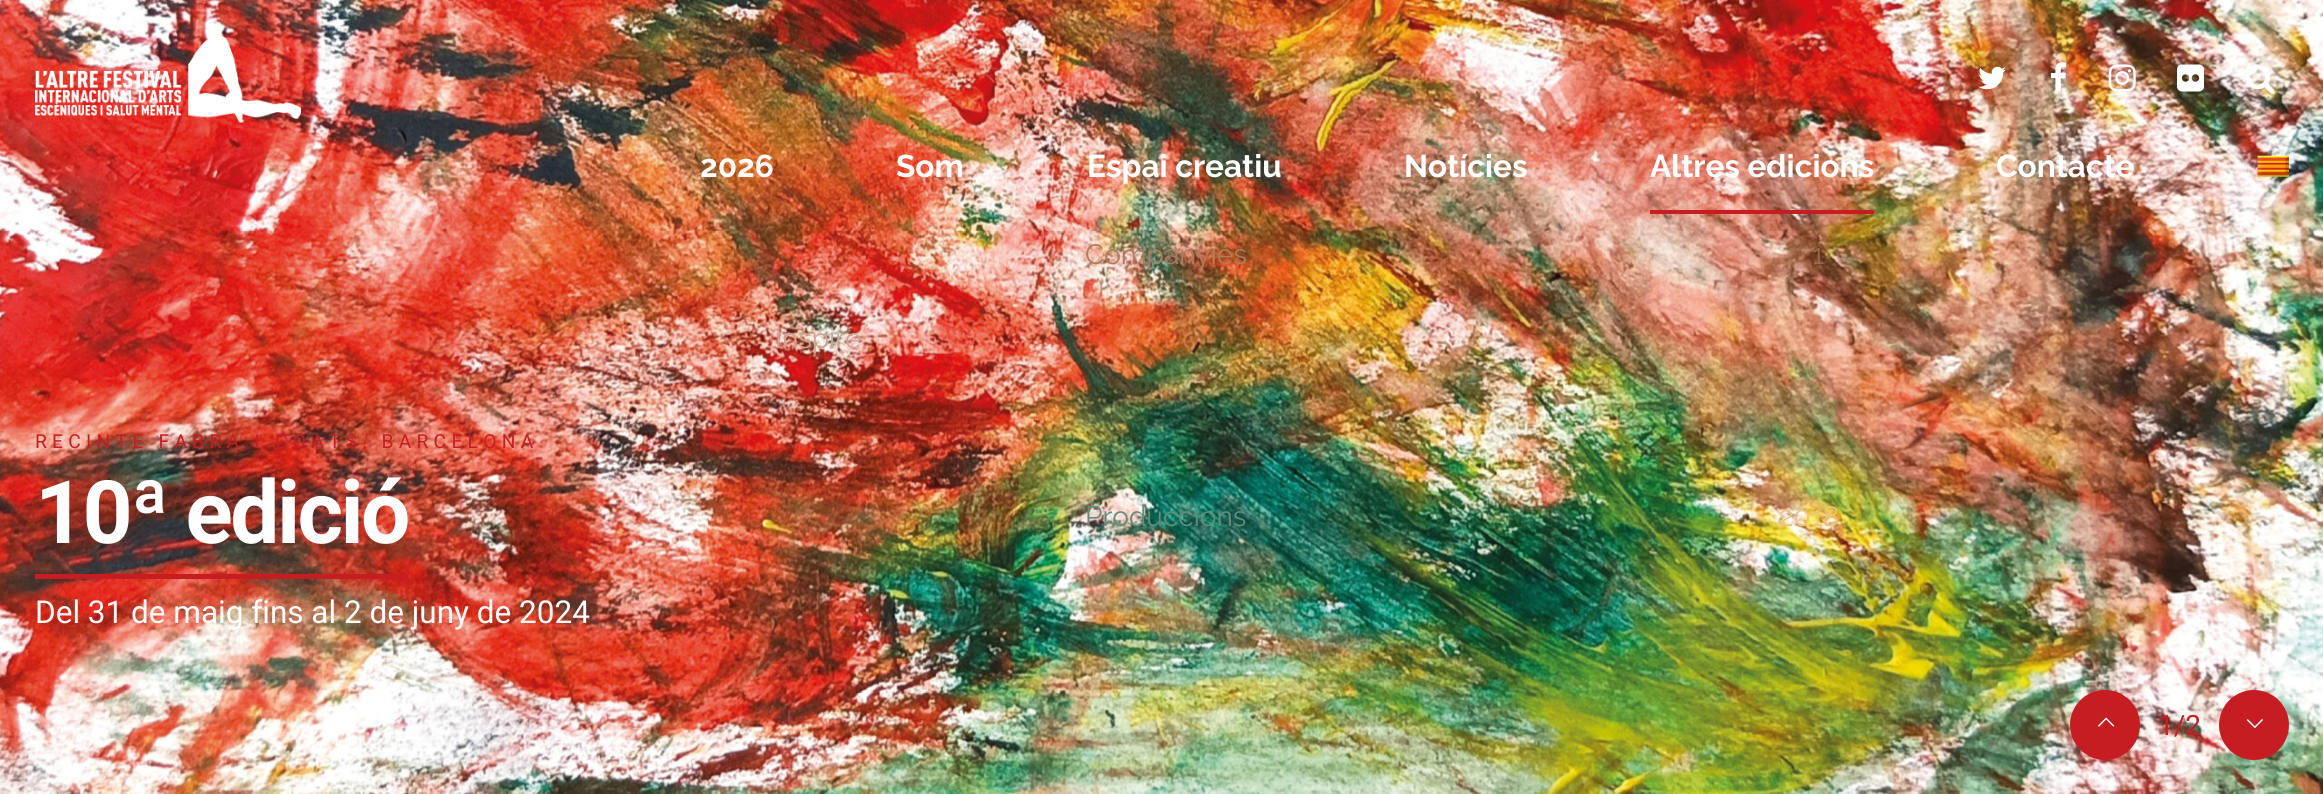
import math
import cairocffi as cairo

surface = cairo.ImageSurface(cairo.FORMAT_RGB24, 2323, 794)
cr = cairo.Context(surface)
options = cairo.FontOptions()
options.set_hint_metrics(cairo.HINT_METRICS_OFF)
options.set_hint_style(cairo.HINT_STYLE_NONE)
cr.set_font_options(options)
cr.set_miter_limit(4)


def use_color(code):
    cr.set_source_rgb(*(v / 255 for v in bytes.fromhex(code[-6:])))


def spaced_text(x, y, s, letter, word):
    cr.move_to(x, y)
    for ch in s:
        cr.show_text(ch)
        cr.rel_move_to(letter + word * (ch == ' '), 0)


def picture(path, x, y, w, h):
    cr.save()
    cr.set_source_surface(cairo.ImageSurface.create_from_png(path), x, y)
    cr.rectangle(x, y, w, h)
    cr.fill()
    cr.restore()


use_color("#ffffff")
cr.paint()
picture("img1.png", 0, 0, 2323, 794)
cr.select_font_face("Roboto")
cr.set_font_size(19.25)
use_color("#c61d23")
spaced_text(35, 448, "RECINTE FABRA I COATS, BARCELONA", 5.25, 0)
cr.select_font_face("Roboto", cairo.FONT_SLANT_NORMAL, cairo.FONT_WEIGHT_BOLD)
cr.set_font_size(87.5)
use_color("#ffffff")
spaced_text(35, 543, "10ª edició", -2.6, 0)
use_color("#c61d23")
cr.rectangle(35, 574, 373, 5)
cr.fill()
cr.select_font_face("Roboto")
cr.set_font_size(31.5)
use_color("#ffffff")
cr.move_to(35, 623)
cr.show_text("Del 31 de maig fins al 2 de juny de 2024")
picture("img2.png", 35, 35, 266, 88)
picture("img3.png", 1978, 66, 28, 24)
picture("img4.png", 2050, 62, 17, 30)
picture("img5.png", 2108, 64, 28, 28)
picture("img6.png", 2177, 64, 27, 28)
picture("img7.png", 2245, 64, 30, 30)
cr.select_font_face("Raleway", cairo.FONT_SLANT_NORMAL, cairo.FONT_WEIGHT_BOLD)
cr.move_to(700, 177)
cr.show_text("2026")
cr.move_to(1087, 177)
cr.show_text("Espai creatiu")
cr.select_font_face("Raleway")
cr.set_font_size(28)
use_color("#ae7d5f")
cr.move_to(1085, 264)
cr.show_text("Companyies")
use_color("#cea496")
cr.move_to(775, 348)
cr.show_text("Inspire")
use_color("#618d7d")
cr.move_to(1085, 526)
cr.show_text("Produccions")
cr.select_font_face("Raleway", cairo.FONT_SLANT_NORMAL, cairo.FONT_WEIGHT_BOLD)
cr.set_font_size(31.5)
use_color("#ffffff")
cr.move_to(896, 177)
cr.show_text("Som")
cr.move_to(1404, 177)
cr.show_text("Notícies")
use_color("#c61d23")
cr.rectangle(1650, 210, 224, 4)
cr.fill()
use_color("#ffffff")
cr.move_to(1650, 177)
cr.show_text("Altres edicions")
cr.select_font_face("Raleway")
cr.set_font_size(28)
use_color("#9b6848")
cr.move_to(1812, 264)
cr.show_text("1")
use_color("#e7c77c")
cr.move_to(1779, 526)
cr.show_text("2018")
cr.select_font_face("Raleway", cairo.FONT_SLANT_NORMAL, cairo.FONT_WEIGHT_BOLD)
cr.set_font_size(31.5)
use_color("#ffffff")
cr.move_to(1996, 177)
cr.show_text("Contacte")
picture("img8.png", 2257, 155, 32, 22)
use_color("#c61d23")
cr.arc(2105, 725, 35, 0, 2 * math.pi)
cr.fill()
picture("img9.png", 2098, 717, 17, 10)
cr.select_font_face("Roboto")
cr.set_font_size(28)
cr.move_to(2158, 735)
cr.show_text("1/2")
cr.new_path()
cr.arc(2254, 725, 35, 0, 2 * math.pi)
cr.fill()
picture("img10.png", 2246, 719, 17, 10)
surface.write_to_png("result.png")
